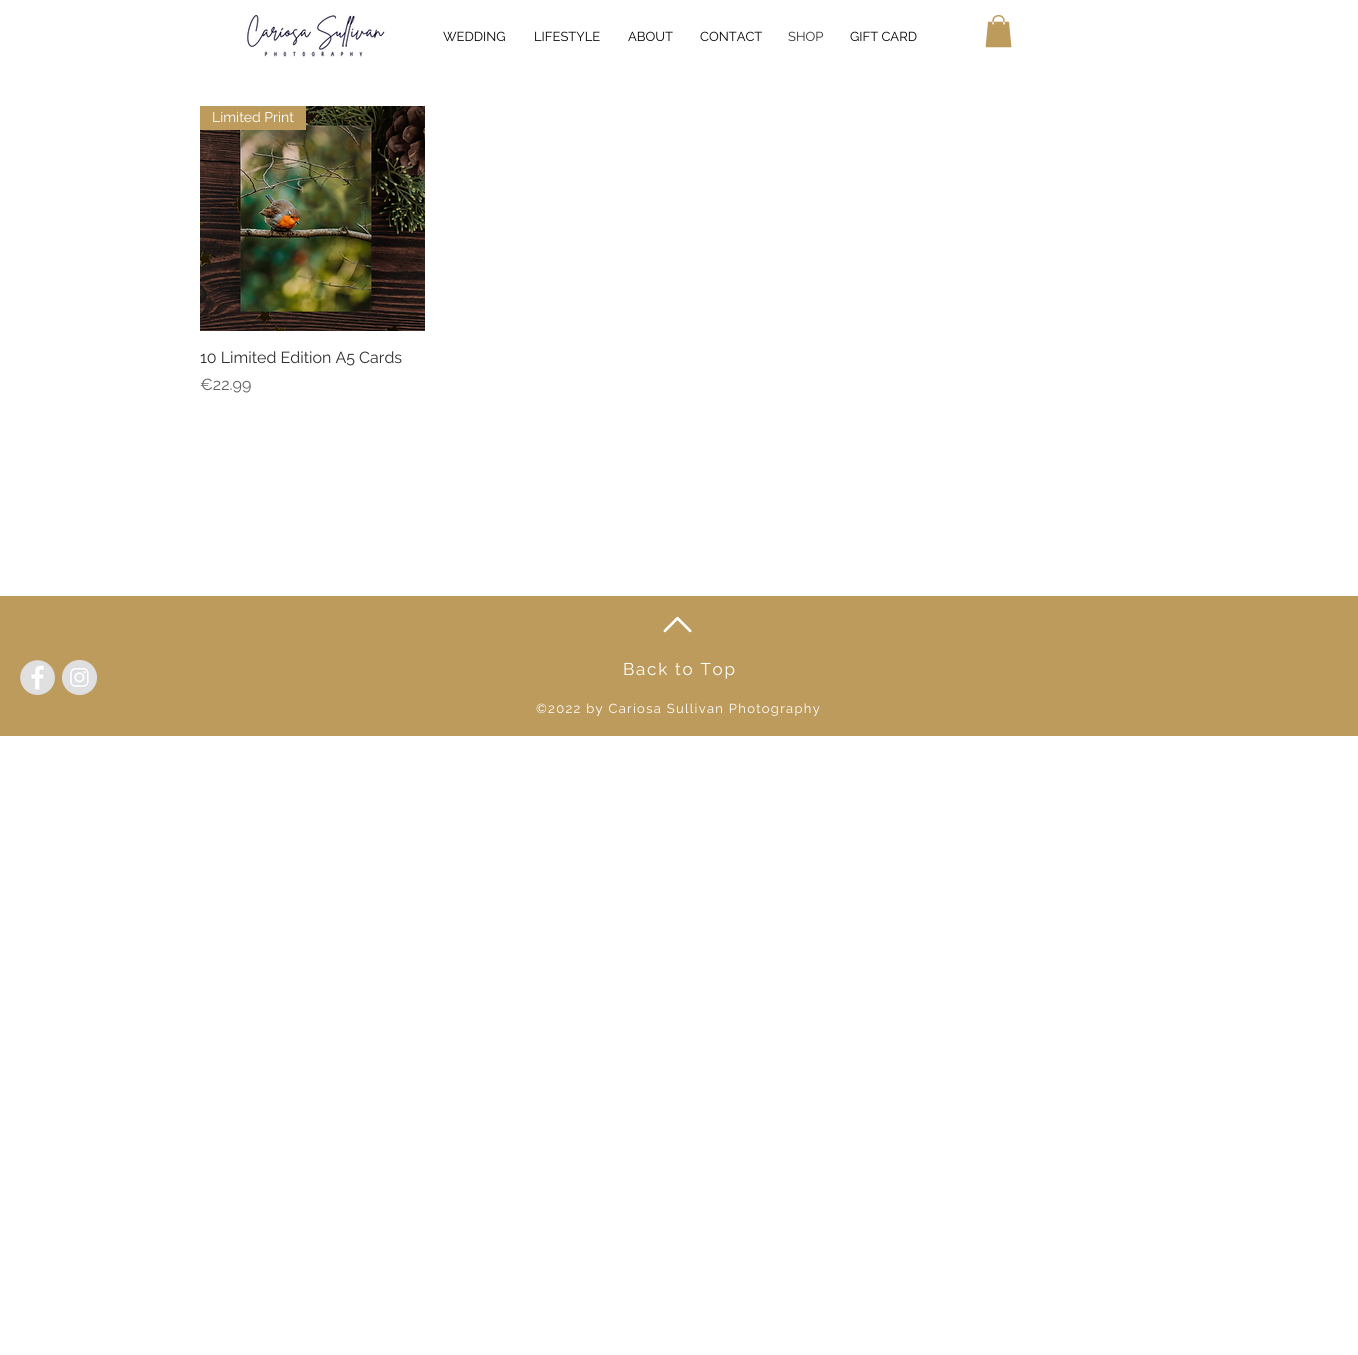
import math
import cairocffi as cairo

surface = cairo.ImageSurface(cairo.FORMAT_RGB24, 1358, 1355)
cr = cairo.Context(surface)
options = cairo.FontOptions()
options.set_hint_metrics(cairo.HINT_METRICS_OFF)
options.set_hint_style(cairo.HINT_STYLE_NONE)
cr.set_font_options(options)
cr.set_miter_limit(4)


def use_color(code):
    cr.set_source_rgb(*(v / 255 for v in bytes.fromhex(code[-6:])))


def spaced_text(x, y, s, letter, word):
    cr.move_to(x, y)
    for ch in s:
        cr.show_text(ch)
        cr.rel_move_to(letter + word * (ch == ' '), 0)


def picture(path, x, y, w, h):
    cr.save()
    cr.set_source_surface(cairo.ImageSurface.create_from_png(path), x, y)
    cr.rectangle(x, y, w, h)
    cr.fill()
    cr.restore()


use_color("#ffffff")
cr.paint()
picture("img1.png", 247, 15, 138, 42)
cr.select_font_face("Raleway")
cr.set_font_size(13)
use_color("#000000")
cr.move_to(443, 41)
cr.show_text("WEDDING")
cr.move_to(534, 41)
cr.show_text("LIFESTYLE")
cr.move_to(628, 41)
cr.show_text("ABOUT")
cr.move_to(700, 41)
cr.show_text("CONTACT")
use_color("#2f2e2e")
cr.move_to(788, 41)
cr.show_text("SHOP")
use_color("#000000")
cr.move_to(850, 41)
cr.show_text("GIFT CARD")
picture("img2.png", 985, 15, 27, 33)
picture("img3.png", 200, 106, 225, 225)
use_color("#bc9b5d")
cr.rectangle(200, 106, 106, 24)
cr.fill()
cr.set_font_size(14)
use_color("#ffffff")
cr.move_to(212, 122)
cr.show_text("Limited Print")
cr.set_font_size(16)
use_color("#2f2e2e")
cr.move_to(200, 363)
cr.show_text("10 Limited Edition A5 Cards")
use_color("#605e5e")
cr.move_to(200, 390)
cr.show_text("€22.99")
use_color("#bc9b5d")
cr.rectangle(0, 596, 1358, 140)
cr.fill()
picture("img4.png", 20, 660, 35, 35)
picture("img5.png", 62, 660, 35, 35)
picture("img6.png", 663, 616, 29, 17)
cr.set_font_size(17)
use_color("#ffffff")
spaced_text(623, 675, "Back to Top", 1.75, 0)
cr.set_font_size(13)
spaced_text(536, 713, "©2022 by Caríosa Sullivan Photography", 1.3, 0)
surface.write_to_png("result.png")
